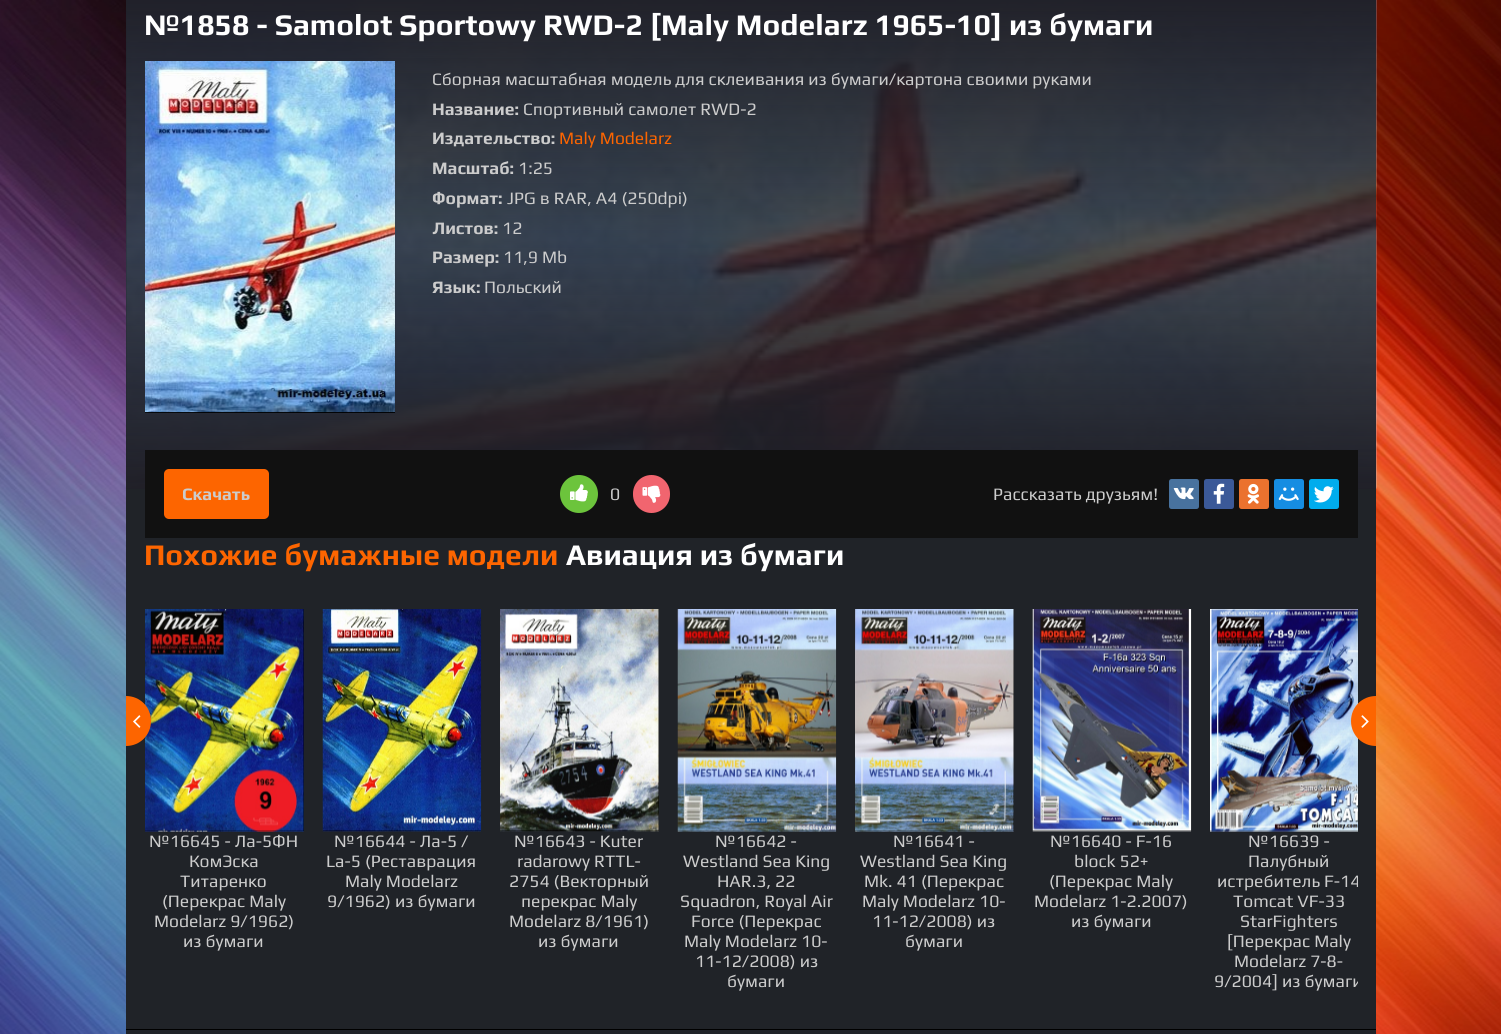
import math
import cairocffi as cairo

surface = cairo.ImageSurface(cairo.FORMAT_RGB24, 1501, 1034)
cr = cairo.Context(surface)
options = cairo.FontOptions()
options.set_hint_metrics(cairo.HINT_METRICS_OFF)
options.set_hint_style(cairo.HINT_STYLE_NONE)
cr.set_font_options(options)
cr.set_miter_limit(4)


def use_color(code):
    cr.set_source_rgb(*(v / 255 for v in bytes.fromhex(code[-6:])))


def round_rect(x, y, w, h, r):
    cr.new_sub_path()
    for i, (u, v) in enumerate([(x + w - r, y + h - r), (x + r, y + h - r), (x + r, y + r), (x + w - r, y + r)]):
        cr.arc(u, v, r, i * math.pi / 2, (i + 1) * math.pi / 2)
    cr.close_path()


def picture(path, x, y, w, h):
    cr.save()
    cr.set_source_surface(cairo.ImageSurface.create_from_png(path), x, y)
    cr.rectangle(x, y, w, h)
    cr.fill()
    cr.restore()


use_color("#ffffff")
cr.paint()
picture("img1.png", 0, 0, 1501, 1034)
use_color("#202328")
cr.rectangle(126, 0, 1250, 1034)
cr.fill()
picture("img2.png", 126, 0, 1251, 489)
cr.set_source_rgba(0.125, 0.125, 0.157, 0.6)
cr.rectangle(126, 0, 1250, 486)
cr.fill()
gradient = cairo.LinearGradient(751, -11, 751, 489)
gradient.add_color_stop_rgba(0, 0.125, 0.125, 0.157, 1)
gradient.add_color_stop_rgba(0.5, 0.125, 0.125, 0.157, 0.5)
gradient.add_color_stop_rgba(1, 0.125, 0.125, 0.157, 1)
cr.set_source(gradient)
cr.rectangle(126, 0, 1250, 489)
cr.fill()
cr.select_font_face("Play", cairo.FONT_SLANT_NORMAL, cairo.FONT_WEIGHT_BOLD)
cr.set_font_size(30)
use_color("#ffffff")
cr.move_to(144, 35)
cr.show_text("№1858 - Samolot Sportowy RWD-2 [Maly Modelarz 1965-10] из бумаги")
use_color("#000000")
cr.rectangle(145, 412, 250, 1)
cr.fill()
picture("img3.png", 145, 61, 250, 352)
cr.select_font_face("Play")
cr.set_font_size(17.5)
use_color("#cccccc")
cr.move_to(432, 85)
cr.show_text("Сборная масштабная модель для склеивания из бумаги/картона своими руками")
cr.select_font_face("Play", cairo.FONT_SLANT_NORMAL, cairo.FONT_WEIGHT_BOLD)
cr.move_to(432, 115)
cr.show_text("Название:")
cr.select_font_face("Play")
cr.move_to(523, 115)
cr.show_text("Спортивный самолет RWD-2")
cr.select_font_face("Play", cairo.FONT_SLANT_NORMAL, cairo.FONT_WEIGHT_BOLD)
cr.move_to(432, 144)
cr.show_text("Издательство:")
cr.select_font_face("Play")
use_color("#fd6500")
cr.move_to(559, 144)
cr.show_text("Maly Modelarz")
cr.select_font_face("Play", cairo.FONT_SLANT_NORMAL, cairo.FONT_WEIGHT_BOLD)
use_color("#cccccc")
cr.move_to(432, 174)
cr.show_text("Масштаб:")
cr.select_font_face("Play")
cr.move_to(518, 174)
cr.show_text("1:25")
cr.select_font_face("Play", cairo.FONT_SLANT_NORMAL, cairo.FONT_WEIGHT_BOLD)
cr.move_to(432, 204)
cr.show_text("Формат:")
cr.select_font_face("Play")
cr.move_to(507, 204)
cr.show_text("JPG в RAR, А4 (250dpi)")
cr.select_font_face("Play", cairo.FONT_SLANT_NORMAL, cairo.FONT_WEIGHT_BOLD)
cr.move_to(432, 234)
cr.show_text("Листов:")
cr.select_font_face("Play")
cr.move_to(502, 234)
cr.show_text("12")
cr.select_font_face("Play", cairo.FONT_SLANT_NORMAL, cairo.FONT_WEIGHT_BOLD)
cr.move_to(432, 263)
cr.show_text("Размер:")
cr.select_font_face("Play")
cr.move_to(503, 263)
cr.show_text("11,9 Mb")
cr.select_font_face("Play", cairo.FONT_SLANT_NORMAL, cairo.FONT_WEIGHT_BOLD)
cr.move_to(432, 293)
cr.show_text("Язык:")
cr.select_font_face("Play")
cr.move_to(484, 293)
cr.show_text("Польский")
use_color("#111111")
cr.rectangle(145, 450, 1213, 88)
cr.fill()
use_color("#fd6500")
round_rect(164, 469, 105, 50, 5)
cr.fill()
cr.select_font_face("Play", cairo.FONT_SLANT_NORMAL, cairo.FONT_WEIGHT_BOLD)
use_color("#cccccc")
cr.move_to(182, 500)
cr.show_text("Скачать")
use_color("#6cc43c")
cr.new_path()
cr.arc(579, 494, 19, 0, 2 * math.pi)
cr.fill()
picture("img4.png", 570, 484, 18, 18)
cr.select_font_face("Play")
use_color("#cccccc")
cr.move_to(610, 500)
cr.show_text("0")
use_color("#f1656f")
round_rect(633, 475, 37, 38, 18.5)
cr.fill()
picture("img5.png", 642, 485, 19, 18)
use_color("#cccccc")
cr.move_to(993, 500)
cr.show_text("Рассказать друзьям!")
use_color("#48729e")
round_rect(1169, 479, 30, 30, 2.5)
cr.fill()
picture("img6.png", 1173, 487, 21, 13)
use_color("#3b5998")
round_rect(1204, 479, 30, 30, 2.5)
cr.fill()
picture("img7.png", 1213, 483, 12, 21)
use_color("#eb722e")
round_rect(1239, 479, 30, 30, 2.5)
cr.fill()
picture("img8.png", 1247, 483, 12, 21)
use_color("#168de2")
round_rect(1274, 479, 30, 30, 2.5)
cr.fill()
picture("img9.png", 1278, 487, 21, 14)
use_color("#00aced")
round_rect(1309, 479, 30, 30, 2.5)
cr.fill()
picture("img10.png", 1314, 486, 20, 17)
cr.select_font_face("Play", cairo.FONT_SLANT_NORMAL, cairo.FONT_WEIGHT_BOLD)
cr.set_font_size(30)
use_color("#fd6500")
cr.move_to(144, 565)
cr.show_text("Похожие бумажные модели")
use_color("#ffffff")
cr.move_to(566, 565)
cr.show_text("Авиация из бумаги")
use_color("#000000")
cr.rectangle(145, 609, 159, 222)
cr.fill()
picture("img13.png", 145, 609, 159, 223)
use_color("#fd6500")
cr.new_path()
cr.move_to(126, 696)
cr.curve_to(140, 696, 151, 707, 151, 721)
cr.curve_to(151, 735, 140, 746, 126, 746)
cr.close_path()
cr.fill()
picture("img11.png", 133, 715, 8, 13)
picture("img19.png", 1210, 609, 148, 223)
cr.new_path()
cr.move_to(1376, 696)
cr.line_to(1376, 746)
cr.curve_to(1362, 746, 1351, 735, 1351, 721)
cr.curve_to(1351, 707, 1362, 696, 1376, 696)
cr.close_path()
cr.fill()
picture("img12.png", 1361, 715, 8, 13)
cr.select_font_face("Play")
cr.set_font_size(17.5)
use_color("#cccccc")
cr.move_to(149, 847)
cr.show_text("№16645 - Ла-5ФН")
cr.move_to(189, 867)
cr.show_text("КомЭска")
cr.move_to(180, 887)
cr.show_text("Титаренко")
cr.move_to(162, 907)
cr.show_text("(Перекрас Maly")
cr.move_to(154, 927)
cr.show_text("Modelarz 9/1962)")
cr.move_to(183, 947)
cr.show_text("из бумаги")
use_color("#000000")
cr.rectangle(323, 830, 158, 1)
cr.fill()
picture("img14.png", 322, 609, 160, 223)
use_color("#cccccc")
cr.move_to(334, 847)
cr.show_text("№16644 - Ла-5 /")
cr.move_to(326, 867)
cr.show_text("La-5 (Реставрация")
cr.move_to(345, 887)
cr.show_text("Maly Modelarz")
cr.move_to(327, 907)
cr.show_text("9/1962) из бумаги")
use_color("#000000")
cr.rectangle(500, 609, 159, 222)
cr.fill()
picture("img15.png", 500, 609, 159, 223)
use_color("#cccccc")
cr.move_to(514, 847)
cr.show_text("№16643 - Kuter")
cr.move_to(517, 867)
cr.show_text("radarowy RTTL-")
cr.move_to(509, 887)
cr.show_text("2754 (Векторный")
cr.move_to(521, 907)
cr.show_text("перекрас Maly")
cr.move_to(509, 927)
cr.show_text("Modelarz 8/1961)")
cr.move_to(538, 947)
cr.show_text("из бумаги")
picture("img16.png", 677, 609, 160, 223)
cr.move_to(715, 847)
cr.show_text("№16642 -")
cr.move_to(683, 867)
cr.show_text("Westland Sea King")
cr.move_to(717, 887)
cr.show_text("HAR.3, 22")
cr.move_to(680, 907)
cr.show_text("Squadron, Royal Air")
cr.move_to(691, 927)
cr.show_text("Force (Перекрас")
cr.move_to(684, 947)
cr.show_text("Maly Modelarz 10-")
cr.move_to(695, 967)
cr.show_text("11-12/2008) из")
cr.move_to(727, 987)
cr.show_text("бумаги")
use_color("#000000")
cr.rectangle(855, 609, 159, 222)
cr.fill()
picture("img17.png", 855, 609, 159, 223)
use_color("#cccccc")
cr.move_to(893, 847)
cr.show_text("№16641 -")
cr.move_to(860, 867)
cr.show_text("Westland Sea King")
cr.move_to(864, 887)
cr.show_text("Mk. 41 (Перекрас")
cr.move_to(862, 907)
cr.show_text("Maly Modelarz 10-")
cr.move_to(872, 927)
cr.show_text("11-12/2008) из")
cr.move_to(905, 947)
cr.show_text("бумаги")
use_color("#000000")
cr.rectangle(1033, 830, 158, 1)
cr.fill()
picture("img18.png", 1032, 609, 160, 223)
use_color("#cccccc")
cr.move_to(1050, 847)
cr.show_text("№16640 - F-16")
cr.move_to(1074, 867)
cr.show_text("block 52+")
cr.move_to(1049, 887)
cr.show_text("(Перекрас Maly")
cr.move_to(1034, 907)
cr.show_text("Modelarz 1-2.2007)")
cr.move_to(1071, 927)
cr.show_text("из бумаги")
cr.move_to(1248, 847)
cr.show_text("№16639 -")
cr.move_to(1248, 867)
cr.show_text("Палубный")
cr.save()
cr.rectangle(145, 609, 1213, 401)
cr.clip()
cr.move_to(1217, 887)
cr.show_text("истребитель F-14")
cr.restore()
cr.move_to(1233, 907)
cr.show_text("Tomcat VF-33")
cr.move_to(1240, 927)
cr.show_text("StarFighters")
cr.move_to(1227, 947)
cr.show_text("[Перекрас Maly")
cr.move_to(1234, 967)
cr.show_text("Modelarz 7-8-")
cr.save()
cr.rectangle(145, 609, 1213, 401)
cr.clip()
cr.move_to(1214, 987)
cr.show_text("9/2004] из бумаги")
cr.restore()
use_color("#000000")
cr.rectangle(126, 1029, 1250, 1)
cr.fill()
surface.write_to_png("result.png")
